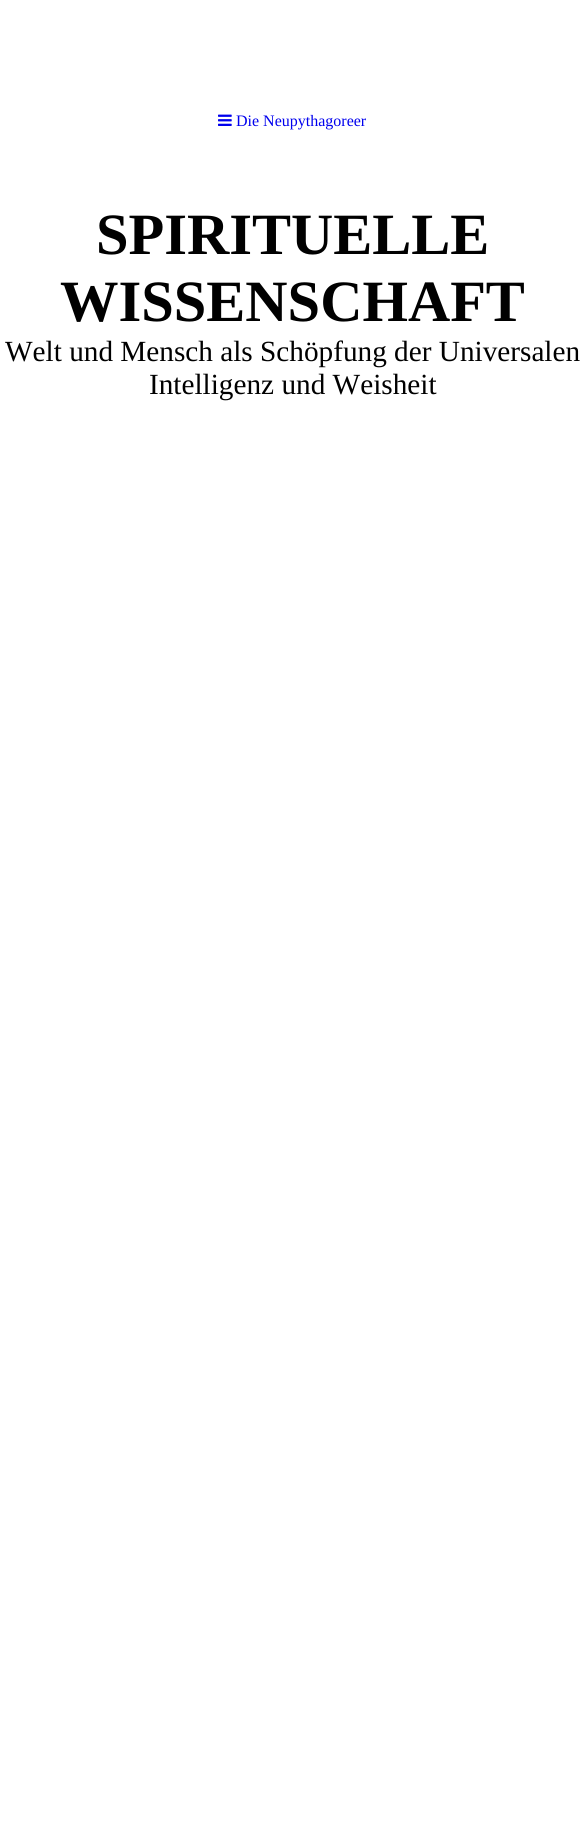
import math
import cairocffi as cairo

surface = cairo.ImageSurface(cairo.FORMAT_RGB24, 584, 1838)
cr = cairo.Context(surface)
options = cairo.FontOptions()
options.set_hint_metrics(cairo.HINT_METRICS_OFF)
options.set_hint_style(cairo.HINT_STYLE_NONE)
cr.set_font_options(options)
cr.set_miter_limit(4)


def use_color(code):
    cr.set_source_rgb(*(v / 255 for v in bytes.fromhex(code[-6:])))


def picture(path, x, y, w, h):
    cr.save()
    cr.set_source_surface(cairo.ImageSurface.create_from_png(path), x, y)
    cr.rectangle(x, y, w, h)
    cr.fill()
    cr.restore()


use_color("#ffffff")
cr.paint()
picture("img1.png", 218, 114, 14, 12)
cr.select_font_face("Liberation Serif")
cr.set_font_size(16)
use_color("#0000ee")
cr.move_to(236, 126)
cr.show_text("Die Neupythagoreer")
cr.select_font_face("Liberation Serif", cairo.FONT_SLANT_NORMAL, cairo.FONT_WEIGHT_BOLD)
cr.set_font_size(58.5)
use_color("#000000")
cr.move_to(96, 254)
cr.show_text("SPIRITUELLE")
cr.move_to(60, 321)
cr.show_text("WISSENSCHAFT")
cr.select_font_face("Liberation Serif")
cr.set_font_size(29.25)
cr.move_to(5, 361)
cr.show_text("Welt und Mensch als Schöpfung der Universalen")
cr.move_to(149, 394)
cr.show_text("Intelligenz und Weisheit")
surface.write_to_png("result.png")
